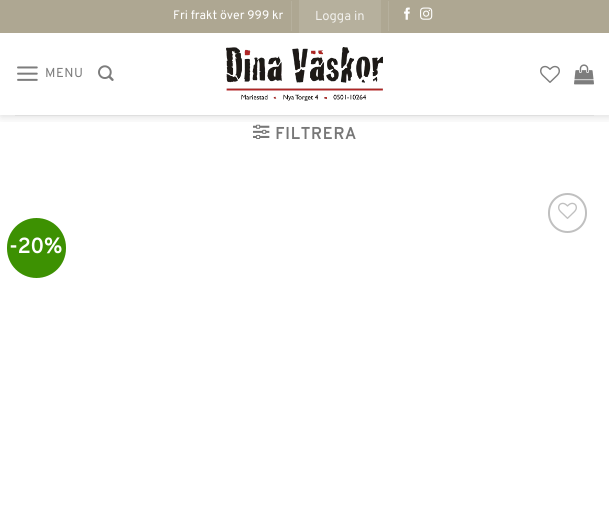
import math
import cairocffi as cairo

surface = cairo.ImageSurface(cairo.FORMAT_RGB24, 609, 527)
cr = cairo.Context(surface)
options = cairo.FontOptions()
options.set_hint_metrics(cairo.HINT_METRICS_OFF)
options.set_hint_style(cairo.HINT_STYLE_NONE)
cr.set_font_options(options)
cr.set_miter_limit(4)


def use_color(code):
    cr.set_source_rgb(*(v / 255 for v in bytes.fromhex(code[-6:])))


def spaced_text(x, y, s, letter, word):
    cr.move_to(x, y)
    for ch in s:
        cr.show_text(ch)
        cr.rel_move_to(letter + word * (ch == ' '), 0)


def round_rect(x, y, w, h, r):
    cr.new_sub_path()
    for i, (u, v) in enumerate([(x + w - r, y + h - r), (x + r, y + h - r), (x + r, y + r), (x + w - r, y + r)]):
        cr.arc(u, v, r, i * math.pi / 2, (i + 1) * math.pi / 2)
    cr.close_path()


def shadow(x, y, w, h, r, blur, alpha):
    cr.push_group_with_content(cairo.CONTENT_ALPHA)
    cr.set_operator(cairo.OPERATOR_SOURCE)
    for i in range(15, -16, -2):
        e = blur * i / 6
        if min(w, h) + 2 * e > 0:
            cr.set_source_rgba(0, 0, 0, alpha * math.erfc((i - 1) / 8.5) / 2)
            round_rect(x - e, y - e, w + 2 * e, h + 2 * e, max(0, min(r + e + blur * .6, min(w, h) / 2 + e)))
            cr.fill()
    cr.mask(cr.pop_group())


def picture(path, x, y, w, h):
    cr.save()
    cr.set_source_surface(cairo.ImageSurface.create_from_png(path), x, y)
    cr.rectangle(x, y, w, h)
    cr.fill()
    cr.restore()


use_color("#ffffff")
cr.paint()
picture("img8.png", 253, 124, 17, 15)
cr.save()
cr.rectangle(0, 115, 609, 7)
cr.clip()
use_color("#000000")
shadow(1, 1, 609, 115, 0, 5, 0.15)
cr.restore()
use_color("#aea792")
cr.rectangle(0, 0, 609, 33)
cr.fill()
cr.select_font_face("Overpass")
cr.set_font_size(12.25)
use_color("#ffffff")
cr.move_to(173, 19)
cr.show_text("Fri frakt över 999 kr")
use_color("#b6b09d")
cr.rectangle(291, 1, 1, 30)
cr.fill()
cr.rectangle(299, 0, 82, 33)
cr.fill()
cr.set_font_size(13)
use_color("#f0efeb")
cr.move_to(315, 20)
cr.show_text("Logga in")
use_color("#b6b09d")
cr.rectangle(388, 1, 1, 30)
cr.fill()
picture("img1.png", 404, 7, 6, 13)
picture("img2.png", 420, 7, 13, 13)
picture("img3.png", 17, 66, 21, 15)
use_color("#7d7d7d")
spaced_text(45, 77, "MENU", 0.5, 0)
picture("img4.png", 98, 65, 16, 16)
picture("img5.png", 226, 47, 157, 54)
picture("img6.png", 540, 65, 20, 18)
picture("img7.png", 574, 64, 20, 21)
use_color("#dfdfdf")
cr.rectangle(15, 115, 579, 1)
cr.fill()
cr.select_font_face("Overpass", cairo.FONT_SLANT_NORMAL, cairo.FONT_WEIGHT_BOLD)
cr.set_font_size(16.5)
use_color("#777777")
spaced_text(275, 139, "FILTRERA", 0.75, 0)
round_rect(549, 194, 37, 38, 18.5)
use_color("#c0c0c0")
cr.stroke()
picture("img9.png", 558, 202, 19, 17)
use_color("#3d9102")
round_rect(7, 218, 59, 60, 29.5)
cr.fill()
cr.set_font_size(21)
use_color("#ffffff")
cr.move_to(9, 253)
cr.show_text("-20%")
surface.write_to_png("result.png")
